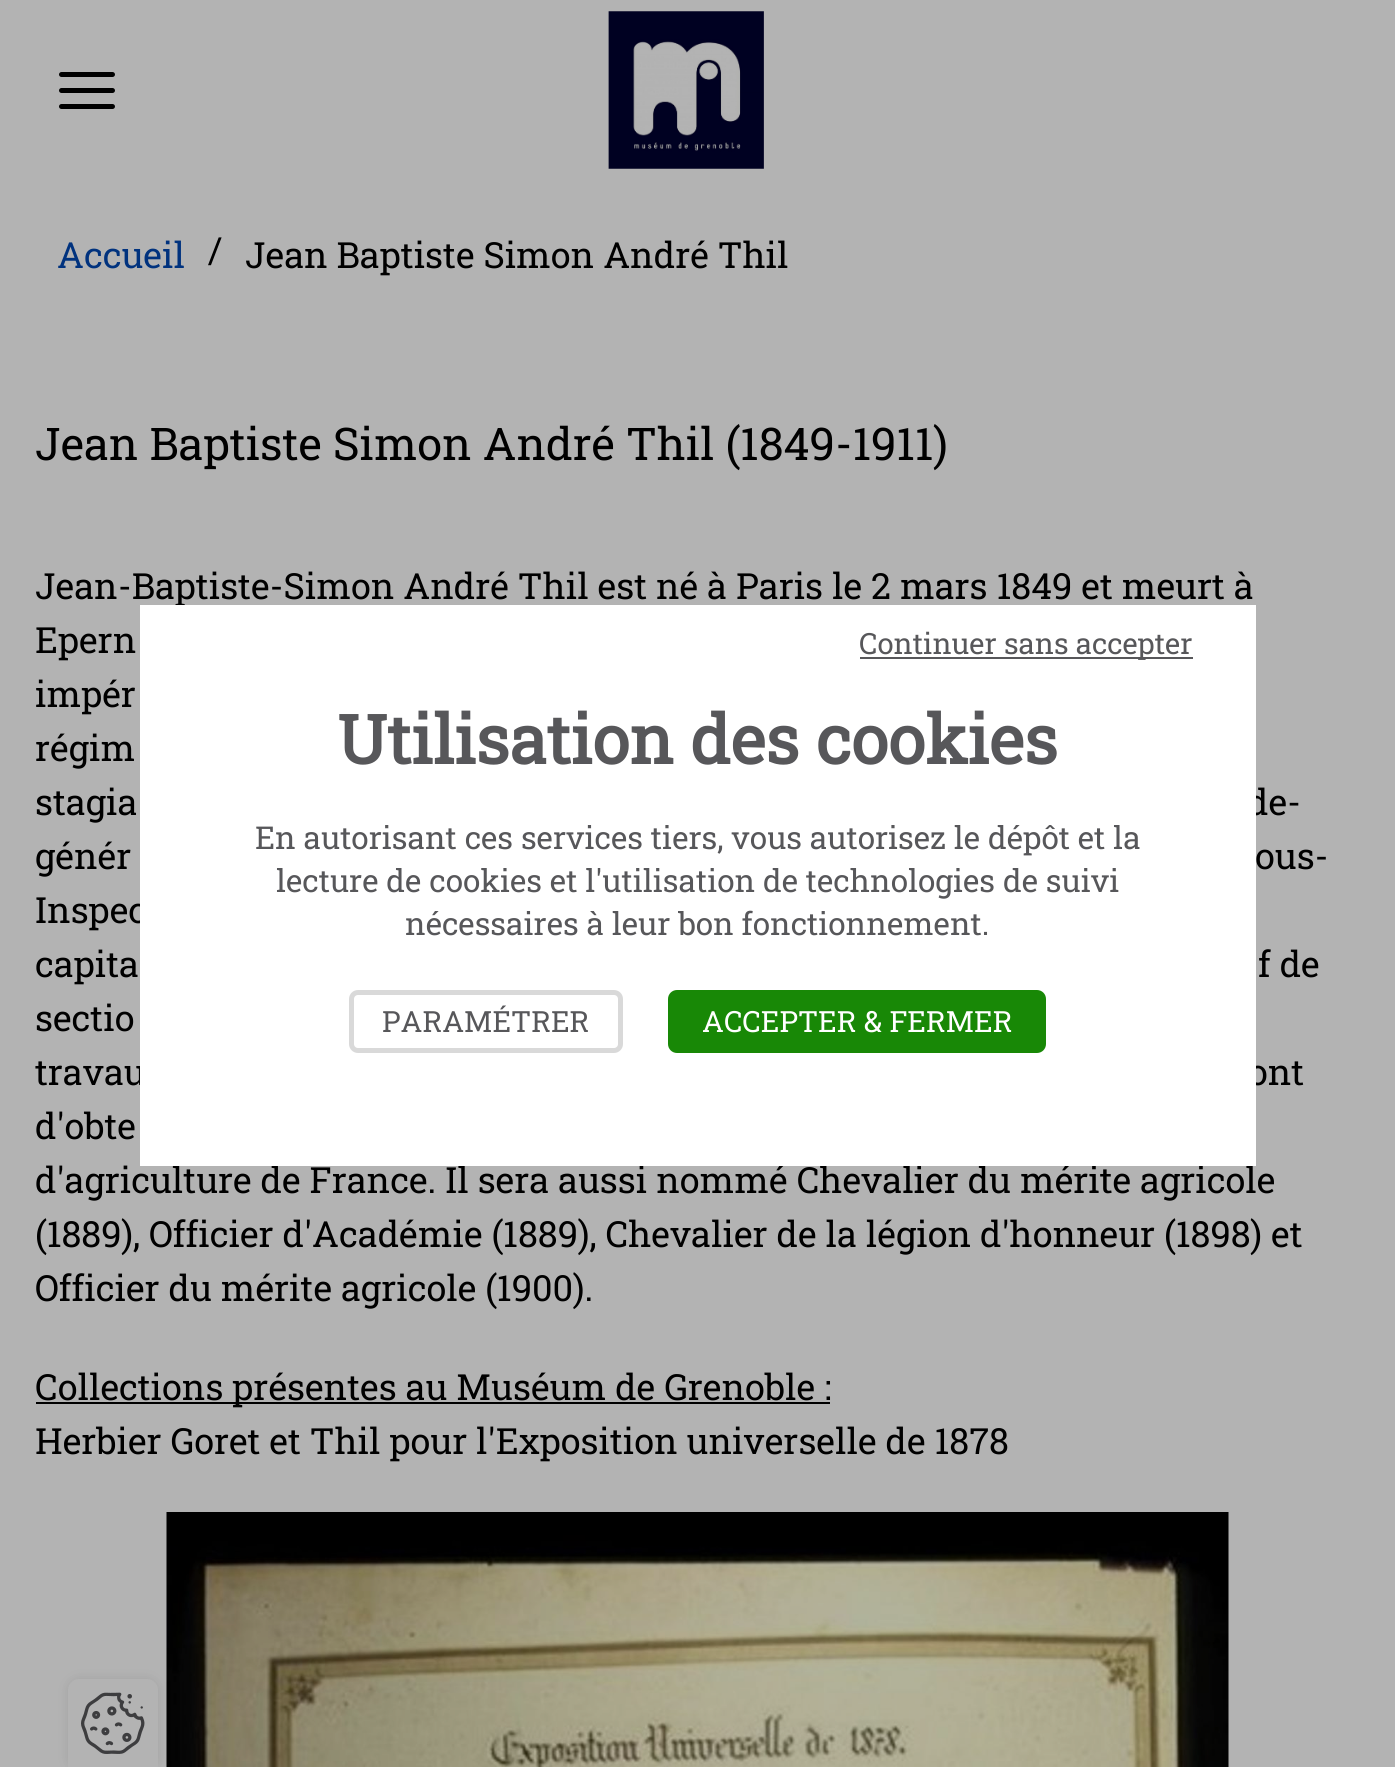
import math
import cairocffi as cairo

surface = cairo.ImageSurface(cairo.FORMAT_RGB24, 1395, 1767)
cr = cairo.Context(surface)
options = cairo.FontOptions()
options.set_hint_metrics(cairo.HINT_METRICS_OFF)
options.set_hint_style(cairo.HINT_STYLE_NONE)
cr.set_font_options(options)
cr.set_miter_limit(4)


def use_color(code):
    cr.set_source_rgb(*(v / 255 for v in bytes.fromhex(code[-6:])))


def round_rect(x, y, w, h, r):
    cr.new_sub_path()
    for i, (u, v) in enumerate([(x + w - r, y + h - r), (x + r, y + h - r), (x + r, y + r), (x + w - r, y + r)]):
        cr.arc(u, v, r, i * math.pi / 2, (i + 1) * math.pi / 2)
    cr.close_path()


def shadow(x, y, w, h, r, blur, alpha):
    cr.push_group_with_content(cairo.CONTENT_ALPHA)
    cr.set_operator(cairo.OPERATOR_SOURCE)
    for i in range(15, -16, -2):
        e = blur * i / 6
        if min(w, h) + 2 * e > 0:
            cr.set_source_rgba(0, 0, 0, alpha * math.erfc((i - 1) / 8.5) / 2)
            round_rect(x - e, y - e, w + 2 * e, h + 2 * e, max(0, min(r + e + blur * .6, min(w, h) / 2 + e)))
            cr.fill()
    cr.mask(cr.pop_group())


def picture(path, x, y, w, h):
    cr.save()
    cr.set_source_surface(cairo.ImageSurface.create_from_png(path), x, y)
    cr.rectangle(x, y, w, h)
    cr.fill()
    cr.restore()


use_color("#b3b3b3")
cr.paint()
use_color("#000000")
round_rect(59, 72, 56, 5, 2.5)
cr.fill()
round_rect(59, 88, 56, 5, 2.5)
cr.fill()
round_rect(59, 104, 56, 5, 2.5)
cr.fill()
picture("img1.png", 608, 11, 156, 158)
cr.select_font_face("Roboto Slab")
cr.set_font_size(36)
use_color("#00327e")
cr.move_to(57, 268)
cr.show_text("Accueil")
use_color("#000000")
cr.move_to(208, 263)
cr.show_text("/")
cr.move_to(245, 268)
cr.show_text("Jean Baptiste Simon André Thil")
cr.set_font_size(45)
cr.move_to(35, 460)
cr.show_text("Jean Baptiste Simon André Thil (1849-1911)")
cr.set_font_size(36)
cr.move_to(35, 599)
cr.show_text("Jean-Baptiste-Simon André Thil est né à Paris le 2 mars 1849 et meurt à")
cr.move_to(35, 653)
cr.show_text("Epern")
cr.move_to(35, 707)
cr.show_text("impér")
cr.move_to(35, 761)
cr.show_text("régim")
cr.move_to(35, 815)
cr.show_text("stagia")
cr.move_to(1247, 815)
cr.show_text("de-")
cr.move_to(35, 869)
cr.show_text("génér")
cr.move_to(1255, 869)
cr.show_text("ous-")
cr.move_to(35, 923)
cr.show_text("Inspec")
cr.move_to(35, 977)
cr.show_text("capita")
cr.move_to(1258, 977)
cr.show_text("f de")
cr.move_to(35, 1031)
cr.show_text("sectio")
cr.move_to(35, 1085)
cr.show_text("travau")
cr.move_to(1248, 1085)
cr.show_text("ont")
cr.move_to(35, 1139)
cr.show_text("d'obte")
cr.move_to(35, 1193)
cr.show_text("d'agriculture de France. Il sera aussi nommé Chevalier du mérite agricole")
cr.move_to(35, 1247)
cr.show_text("(1889), Officier d'Académie (1889), Chevalier de la légion d'honneur (1898) et")
cr.move_to(35, 1301)
cr.show_text("Officier du mérite agricole (1900).")
cr.rectangle(36, 1402, 794, 2)
cr.fill()
cr.move_to(35, 1400)
cr.show_text("Collections présentes au Muséum de Grenoble :")
cr.move_to(35, 1454)
cr.show_text("Herbier Goret et Thil pour l'Exposition universelle de 1878")
picture("img2.png", 166, 1512, 1063, 255)
use_color("#ffffff")
cr.rectangle(140, 605, 1116, 561)
cr.fill()
use_color("#57575a")
cr.rectangle(860, 657, 333, 2)
cr.fill()
cr.set_font_size(29.25)
cr.move_to(859, 654)
cr.show_text("Continuer sans accepter")
round_rect(351.5, 992.5, 269, 58, 6.5)
use_color("#d9d9d9")
cr.set_line_width(5)
cr.stroke()
use_color("#57575a")
cr.move_to(382, 1032)
cr.show_text("PARAMÉTRER")
use_color("#188806")
round_rect(670.5, 992.5, 373, 58, 6.5)
cr.fill_preserve()
cr.stroke()
use_color("#ffffff")
cr.move_to(702, 1032)
cr.show_text("ACCEPTER & FERMER")
cr.select_font_face("Roboto Slab", cairo.FONT_SLANT_NORMAL, cairo.FONT_WEIGHT_BOLD)
cr.set_font_size(67.5)
use_color("#57575a")
cr.move_to(337, 764)
cr.show_text("Utilisation des cookies")
cr.select_font_face("Roboto Slab")
cr.set_font_size(31.5)
cr.move_to(255, 849)
cr.show_text("En autorisant ces services tiers, vous autorisez le dépôt et la")
cr.move_to(276, 892)
cr.show_text("lecture de cookies et l'utilisation de technologies de suivi")
cr.move_to(405, 935)
cr.show_text("nécessaires à leur bon fonctionnement.")
use_color("#000000")
shadow(68, 1679, 90, 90, 11, 5.5, 0.1)
use_color("#b3b3b3")
cr.new_path()
cr.move_to(79, 1679)
cr.line_to(147, 1679)
cr.curve_to(153, 1679, 158, 1684, 158, 1690)
cr.line_to(158, 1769)
cr.line_to(68, 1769)
cr.line_to(68, 1690)
cr.curve_to(68, 1684, 73, 1679, 79, 1679)
cr.close_path()
cr.fill()
picture("img3.png", 81, 1692, 64, 62)
surface.write_to_png("result.png")
